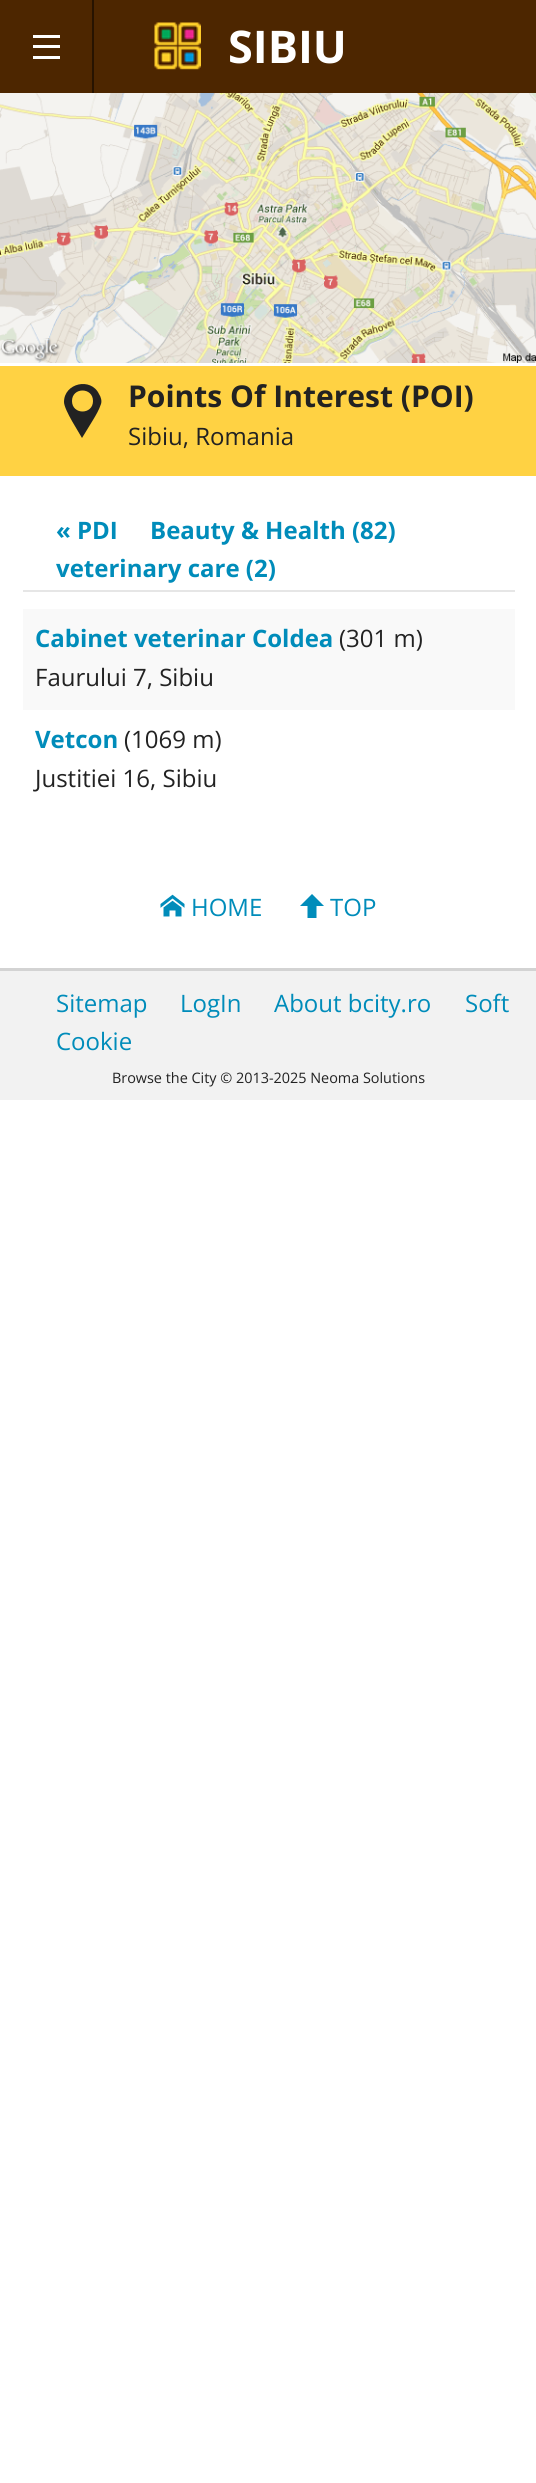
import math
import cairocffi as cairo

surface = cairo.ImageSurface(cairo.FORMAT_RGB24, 536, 2483)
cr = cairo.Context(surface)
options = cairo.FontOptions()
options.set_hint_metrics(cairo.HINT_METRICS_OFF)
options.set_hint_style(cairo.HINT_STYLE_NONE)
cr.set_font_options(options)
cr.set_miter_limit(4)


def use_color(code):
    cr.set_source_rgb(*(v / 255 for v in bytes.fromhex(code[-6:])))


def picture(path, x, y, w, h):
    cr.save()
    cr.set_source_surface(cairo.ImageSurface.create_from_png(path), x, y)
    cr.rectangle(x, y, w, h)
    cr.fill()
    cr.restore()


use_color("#ffffff")
cr.paint()
use_color("#4d2600")
cr.rectangle(0, 0, 536, 93)
cr.fill()
use_color("#271300")
cr.rectangle(92, 0, 2, 93)
cr.fill()
use_color("#ffffff")
cr.rectangle(33, 56, 27, 3)
cr.fill()
cr.rectangle(33, 45, 27, 3)
cr.fill()
cr.rectangle(33, 35, 27, 3)
cr.fill()
picture("img1.png", 154, 22, 47, 48)
cr.select_font_face("Open Sans", cairo.FONT_SLANT_NORMAL, cairo.FONT_WEIGHT_BOLD)
cr.set_font_size(45)
cr.move_to(228, 63)
cr.show_text("SIBIU")
picture("img2.png", 0, 93, 536, 270)
use_color("#ffd243")
cr.rectangle(0, 366, 536, 110)
cr.fill()
use_color("#222222")
cr.new_path()
cr.move_to(72, 401)
cr.curve_to(72, 387, 93, 387, 93, 401)
cr.curve_to(93, 415, 72, 415, 72, 401)
cr.close_path()
cr.move_to(64, 402)
cr.curve_to(64, 410, 80, 434, 82, 438)
cr.line_to(93, 420)
cr.curve_to(96, 415, 99, 410, 101, 404)
cr.curve_to(102, 401, 101, 397, 99, 394)
cr.curve_to(91, 377, 64, 383, 64, 402)
cr.close_path()
cr.fill()
cr.set_font_size(30)
cr.move_to(128, 407)
cr.show_text("Points Of Interest (POI)")
cr.select_font_face("Open Sans")
cr.set_font_size(24)
cr.move_to(128, 445)
cr.show_text("Sibiu, Romania")
use_color("#e6e6e6")
cr.rectangle(23, 590, 492, 2)
cr.fill()
cr.select_font_face("Open Sans", cairo.FONT_SLANT_NORMAL, cairo.FONT_WEIGHT_BOLD)
use_color("#008cba")
cr.move_to(56, 539)
cr.show_text("« PDI")
cr.move_to(150, 539)
cr.show_text("Beauty & Health (82)")
cr.move_to(56, 577)
cr.show_text("veterinary care (2)")
use_color("#f9f9f9")
cr.rectangle(23, 609, 492, 101)
cr.fill()
use_color("#008cba")
cr.move_to(35, 647)
cr.show_text("Cabinet veterinar Coldea")
cr.select_font_face("Open Sans")
use_color("#222222")
cr.move_to(339, 647)
cr.show_text("(301 m)")
cr.move_to(35, 686)
cr.show_text("Faurului 7, Sibiu")
cr.select_font_face("Open Sans", cairo.FONT_SLANT_NORMAL, cairo.FONT_WEIGHT_BOLD)
use_color("#008cba")
cr.move_to(35, 748)
cr.show_text("Vetcon")
cr.select_font_face("Open Sans")
use_color("#222222")
cr.move_to(124, 748)
cr.show_text("(1069 m)")
cr.move_to(35, 787)
cr.show_text("Justitiei 16, Sibiu")
picture("img3.png", 160, 894, 25, 23)
use_color("#008cba")
cr.move_to(191, 916)
cr.show_text("HOME")
cr.move_to(330, 916)
cr.show_text("TOP")
cr.new_path()
cr.move_to(312, 894)
cr.line_to(300, 906)
cr.line_to(307.5, 906)
cr.line_to(307.5, 918)
cr.line_to(316.5, 918)
cr.line_to(316.5, 906)
cr.line_to(324, 906)
cr.close_path()
cr.fill()
use_color("#f2f2f2")
cr.rectangle(0, 971, 536, 129)
cr.fill()
use_color("#d3d3d3")
cr.rectangle(0, 968, 536, 3)
cr.fill()
use_color("#008cba")
cr.move_to(56, 1012)
cr.show_text("Sitemap")
cr.move_to(180, 1012)
cr.show_text("LogIn")
cr.move_to(274, 1012)
cr.show_text("About bcity.ro")
cr.move_to(465, 1012)
cr.show_text("Soft")
cr.move_to(56, 1050)
cr.show_text("Cookie")
cr.set_font_size(14.4)
use_color("#222222")
cr.move_to(112, 1083)
cr.show_text("Browse the City © 2013-2025 Neoma Solutions")
surface.write_to_png("result.png")
